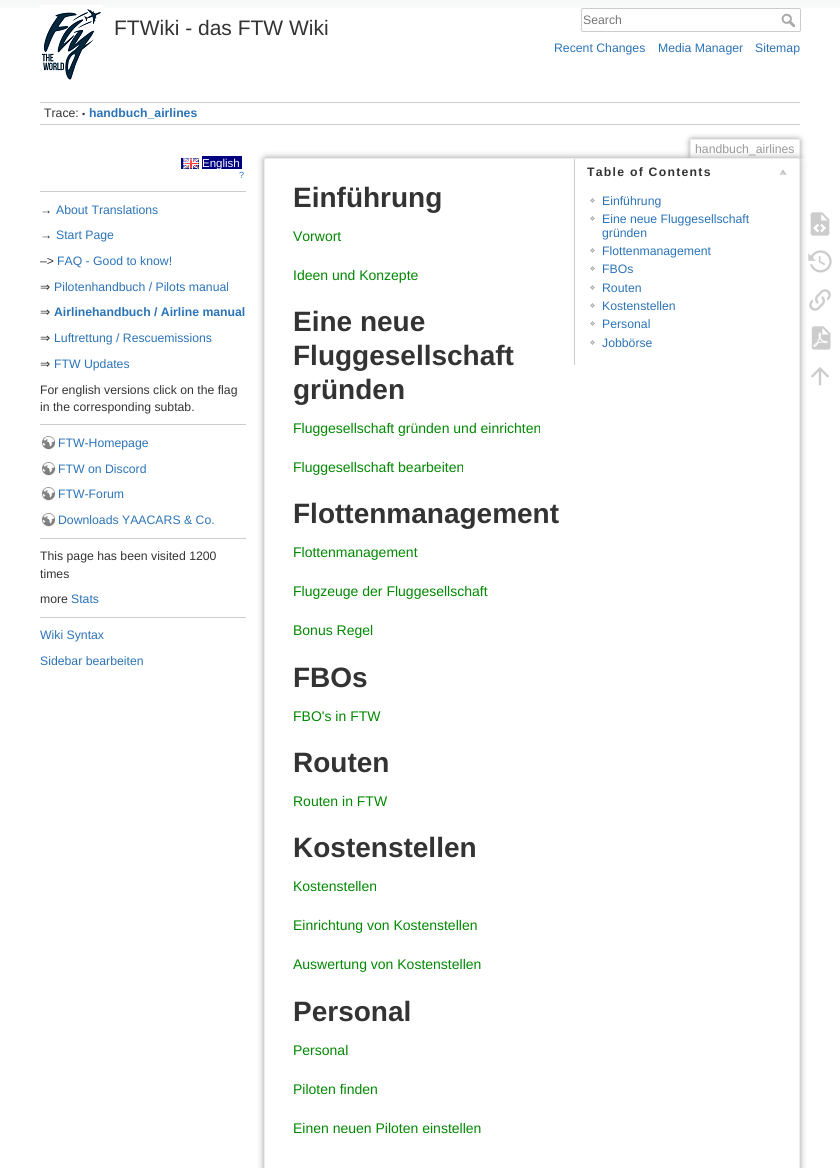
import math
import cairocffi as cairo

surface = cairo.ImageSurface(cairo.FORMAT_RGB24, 840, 1168)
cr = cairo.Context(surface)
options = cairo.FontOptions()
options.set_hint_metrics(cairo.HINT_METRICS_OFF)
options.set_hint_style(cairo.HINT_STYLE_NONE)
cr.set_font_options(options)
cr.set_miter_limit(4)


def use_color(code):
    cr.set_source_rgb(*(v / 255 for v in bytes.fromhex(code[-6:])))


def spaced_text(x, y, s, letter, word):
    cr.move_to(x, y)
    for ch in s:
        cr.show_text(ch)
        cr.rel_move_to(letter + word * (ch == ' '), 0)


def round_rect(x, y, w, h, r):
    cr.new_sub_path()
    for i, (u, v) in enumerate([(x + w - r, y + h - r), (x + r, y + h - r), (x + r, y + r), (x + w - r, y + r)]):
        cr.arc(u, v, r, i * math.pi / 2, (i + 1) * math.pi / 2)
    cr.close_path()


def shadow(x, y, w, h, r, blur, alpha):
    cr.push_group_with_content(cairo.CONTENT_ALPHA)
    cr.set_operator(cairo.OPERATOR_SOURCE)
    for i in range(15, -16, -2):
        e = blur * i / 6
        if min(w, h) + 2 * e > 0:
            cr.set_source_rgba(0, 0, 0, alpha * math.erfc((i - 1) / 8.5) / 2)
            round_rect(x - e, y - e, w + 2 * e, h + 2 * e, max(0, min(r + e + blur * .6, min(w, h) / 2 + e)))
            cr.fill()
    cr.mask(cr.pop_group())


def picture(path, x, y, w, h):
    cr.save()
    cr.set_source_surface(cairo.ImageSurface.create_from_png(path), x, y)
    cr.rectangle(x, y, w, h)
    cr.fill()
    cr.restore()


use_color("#ffffff")
cr.paint()
picture("img1.png", 0, 0, 840, 8)
picture("img2.png", 40, 5, 63, 75)
cr.select_font_face("Liberation Sans")
cr.set_font_size(21)
use_color("#333333")
cr.move_to(114, 35)
cr.show_text("FTWiki - das FTW Wiki")
round_rect(581.5, 8.5, 219, 23, 1.5)
use_color("#cccccc")
cr.set_line_width(1)
cr.stroke()
cr.set_font_size(12.25)
use_color("#757575")
cr.move_to(583, 24)
cr.show_text("Search")
picture("img3.png", 781, 13, 14, 14)
use_color("#2b73b7")
cr.move_to(554, 52)
cr.show_text("Recent Changes")
cr.move_to(658, 52)
cr.show_text("Media Manager")
cr.move_to(755, 52)
cr.show_text("Sitemap")
use_color("#cccccc")
cr.rectangle(40, 102, 760, 1)
cr.fill()
cr.rectangle(40, 124, 760, 1)
cr.fill()
use_color("#333333")
cr.move_to(44, 117)
cr.show_text("Trace:")
cr.set_font_size(9)
cr.move_to(82, 117)
cr.show_text("•")
cr.select_font_face("Liberation Sans", cairo.FONT_SLANT_NORMAL, cairo.FONT_WEIGHT_BOLD)
cr.set_font_size(12.25)
use_color("#2b73b7")
cr.move_to(89, 117)
cr.show_text("handbuch_airlines")
picture("img4.png", 183, 158, 16, 11)
use_color("#000080")
cr.rectangle(202, 156, 40, 13)
cr.fill()
cr.select_font_face("Liberation Sans")
cr.set_font_size(11.5)
use_color("#ffffff")
cr.move_to(202, 167)
cr.show_text("English")
use_color("#000080")
cr.rectangle(181, 158, 2, 11)
cr.fill()
cr.set_font_size(9)
use_color("#2b73b7")
cr.move_to(239, 178)
cr.show_text("?")
use_color("#cccccc")
cr.rectangle(40, 191, 206, 1)
cr.fill()
cr.set_font_size(12.25)
use_color("#333333")
cr.move_to(40, 214)
cr.show_text("→")
use_color("#2b73b7")
cr.move_to(56, 214)
cr.show_text("About Translations")
use_color("#333333")
cr.move_to(40, 239)
cr.show_text("→")
use_color("#2b73b7")
cr.move_to(56, 239)
cr.show_text("Start Page")
use_color("#333333")
cr.move_to(40, 265)
cr.show_text("–>")
use_color("#2b73b7")
cr.move_to(57, 265)
cr.show_text("FAQ - Good to know!")
cr.select_font_face("DejaVu Sans")
use_color("#333333")
cr.move_to(40, 291)
cr.show_text("⇒")
cr.select_font_face("Liberation Sans")
use_color("#2b73b7")
cr.move_to(54, 291)
cr.show_text("Pilotenhandbuch / Pilots manual")
cr.select_font_face("DejaVu Sans")
use_color("#333333")
cr.move_to(40, 316)
cr.show_text("⇒")
cr.select_font_face("Liberation Sans", cairo.FONT_SLANT_NORMAL, cairo.FONT_WEIGHT_BOLD)
use_color("#2b73b7")
cr.move_to(54, 316)
cr.show_text("Airlinehandbuch / Airline manual")
cr.select_font_face("DejaVu Sans")
use_color("#333333")
cr.move_to(40, 342)
cr.show_text("⇒")
cr.select_font_face("Liberation Sans")
use_color("#2b73b7")
cr.move_to(54, 342)
cr.show_text("Luftrettung / Rescuemissions")
cr.select_font_face("DejaVu Sans")
use_color("#333333")
cr.move_to(40, 368)
cr.show_text("⇒")
cr.select_font_face("Liberation Sans")
use_color("#2b73b7")
cr.move_to(54, 368)
cr.show_text("FTW Updates")
use_color("#333333")
cr.move_to(40, 394)
cr.show_text("For english versions click on the flag")
cr.move_to(40, 411)
cr.show_text("in the corresponding subtab.")
use_color("#cccccc")
cr.rectangle(40, 424, 206, 1)
cr.fill()
picture("img5.png", 42, 436, 14, 14)
use_color("#2b73b7")
cr.move_to(58, 447)
cr.show_text("FTW-Homepage")
picture("img5.png", 42, 462, 14, 14)
cr.move_to(58, 473)
cr.show_text("FTW on Discord")
picture("img5.png", 42, 487, 14, 14)
cr.move_to(58, 498)
cr.show_text("FTW-Forum")
picture("img5.png", 42, 513, 14, 14)
cr.move_to(58, 524)
cr.show_text("Downloads YAACARS & Co.")
use_color("#cccccc")
cr.rectangle(40, 538, 206, 1)
cr.fill()
use_color("#333333")
cr.move_to(40, 560)
cr.show_text("This page has been visited 1200")
cr.move_to(40, 578)
cr.show_text("times")
cr.move_to(40, 603)
cr.show_text("more")
use_color("#2b73b7")
cr.move_to(71, 603)
cr.show_text("Stats")
use_color("#cccccc")
cr.rectangle(40, 617, 206, 1)
cr.fill()
use_color("#2b73b7")
cr.move_to(40, 639)
cr.show_text("Wiki Syntax")
cr.move_to(40, 665)
cr.show_text("Sidebar bearbeiten")
cr.save()
cr.rectangle(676, 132, 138, 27)
cr.clip()
cr.set_fill_rule(cairo.FILL_RULE_EVEN_ODD)
cr.new_path()
cr.move_to(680, 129)
cr.line_to(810, 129)
cr.line_to(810, 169)
cr.line_to(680, 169)
cr.close_path()
cr.move_to(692, 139)
cr.line_to(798, 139)
cr.curve_to(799, 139, 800, 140, 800, 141)
cr.line_to(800, 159)
cr.line_to(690, 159)
cr.line_to(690, 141)
cr.curve_to(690, 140, 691, 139, 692, 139)
cr.close_path()
cr.clip()
use_color("#999999")
shadow(690, 139, 110, 20, 2, 3, 1)
cr.restore()
use_color("#eeeeee")
cr.rectangle(691, 139, 108, 1)
cr.fill()
cr.rectangle(799, 140, 1, 19)
cr.fill()
cr.rectangle(690, 140, 1, 19)
cr.fill()
use_color("#999999")
cr.move_to(695, 153)
cr.show_text("handbuch_airlines")
use_color("#999999")
shadow(264, 158, 536, 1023, 2, 3.5, 1)
use_color("#ffffff")
round_rect(264.5, 158.5, 535, 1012, 1.5)
cr.fill_preserve()
use_color("#eeeeee")
cr.stroke()
cr.select_font_face("Liberation Sans", cairo.FONT_SLANT_NORMAL, cairo.FONT_WEIGHT_BOLD)
cr.set_font_size(28)
use_color("#333333")
cr.move_to(293, 207)
cr.show_text("Einführung")
use_color("#ffffff")
cr.new_path()
cr.move_to(574, 159)
cr.line_to(798, 159)
cr.curve_to(798.5, 159, 799, 159.5, 799, 160)
cr.line_to(799, 365)
cr.line_to(574, 365)
cr.close_path()
cr.fill()
use_color("#cccccc")
cr.rectangle(574, 159, 1, 206)
cr.fill()
cr.set_font_size(12.25)
use_color("#333333")
spaced_text(587, 176, "Table of Contents", 1.25, 0)
picture("img6.png", 779, 170, 8, 5)
picture("img7.png", 590, 198, 5, 5)
cr.select_font_face("Liberation Sans")
use_color("#2b73b7")
cr.move_to(602, 205)
cr.show_text("Einführung")
picture("img7.png", 590, 216, 5, 5)
cr.move_to(602, 223)
cr.show_text("Eine neue Fluggesellschaft")
cr.move_to(602, 237)
cr.show_text("gründen")
picture("img7.png", 590, 248, 5, 5)
cr.move_to(602, 255)
cr.show_text("Flottenmanagement")
picture("img7.png", 590, 266, 5, 5)
cr.move_to(602, 273)
cr.show_text("FBOs")
picture("img7.png", 590, 285, 5, 5)
cr.move_to(602, 292)
cr.show_text("Routen")
picture("img7.png", 590, 303, 5, 5)
cr.move_to(602, 310)
cr.show_text("Kostenstellen")
picture("img7.png", 590, 321, 5, 5)
cr.move_to(602, 328)
cr.show_text("Personal")
picture("img7.png", 590, 340, 5, 5)
cr.move_to(602, 347)
cr.show_text("Jobbörse")
cr.set_font_size(14)
use_color("#008800")
cr.move_to(293, 241)
cr.show_text("Vorwort")
cr.move_to(293, 280)
cr.show_text("Ideen und Konzepte")
cr.select_font_face("Liberation Sans", cairo.FONT_SLANT_NORMAL, cairo.FONT_WEIGHT_BOLD)
cr.set_font_size(28)
use_color("#333333")
cr.move_to(293, 331)
cr.show_text("Eine neue")
cr.move_to(293, 365)
cr.show_text("Fluggesellschaft")
cr.move_to(293, 399)
cr.show_text("gründen")
cr.select_font_face("Liberation Sans")
cr.set_font_size(14)
use_color("#008800")
cr.move_to(293, 433)
cr.show_text("Fluggesellschaft gründen und einrichten")
cr.move_to(293, 472)
cr.show_text("Fluggesellschaft bearbeiten")
cr.select_font_face("Liberation Sans", cairo.FONT_SLANT_NORMAL, cairo.FONT_WEIGHT_BOLD)
cr.set_font_size(28)
use_color("#333333")
cr.move_to(293, 523)
cr.show_text("Flottenmanagement")
cr.select_font_face("Liberation Sans")
cr.set_font_size(14)
use_color("#008800")
cr.move_to(293, 557)
cr.show_text("Flottenmanagement")
cr.move_to(293, 596)
cr.show_text("Flugzeuge der Fluggesellschaft")
cr.move_to(293, 635)
cr.show_text("Bonus Regel")
cr.select_font_face("Liberation Sans", cairo.FONT_SLANT_NORMAL, cairo.FONT_WEIGHT_BOLD)
cr.set_font_size(28)
use_color("#333333")
cr.move_to(293, 687)
cr.show_text("FBOs")
cr.select_font_face("Liberation Sans")
cr.set_font_size(14)
use_color("#008800")
cr.move_to(293, 721)
cr.show_text("FBO's in FTW")
cr.select_font_face("Liberation Sans", cairo.FONT_SLANT_NORMAL, cairo.FONT_WEIGHT_BOLD)
cr.set_font_size(28)
use_color("#333333")
cr.move_to(293, 772)
cr.show_text("Routen")
cr.select_font_face("Liberation Sans")
cr.set_font_size(14)
use_color("#008800")
cr.move_to(293, 806)
cr.show_text("Routen in FTW")
cr.select_font_face("Liberation Sans", cairo.FONT_SLANT_NORMAL, cairo.FONT_WEIGHT_BOLD)
cr.set_font_size(28)
use_color("#333333")
cr.move_to(293, 857)
cr.show_text("Kostenstellen")
cr.select_font_face("Liberation Sans")
cr.set_font_size(14)
use_color("#008800")
cr.move_to(293, 891)
cr.show_text("Kostenstellen")
cr.move_to(293, 930)
cr.show_text("Einrichtung von Kostenstellen")
cr.move_to(293, 969)
cr.show_text("Auswertung von Kostenstellen")
cr.select_font_face("Liberation Sans", cairo.FONT_SLANT_NORMAL, cairo.FONT_WEIGHT_BOLD)
cr.set_font_size(28)
use_color("#333333")
cr.move_to(293, 1021)
cr.show_text("Personal")
cr.select_font_face("Liberation Sans")
cr.set_font_size(14)
use_color("#008800")
cr.move_to(293, 1055)
cr.show_text("Personal")
cr.move_to(293, 1094)
cr.show_text("Piloten finden")
cr.move_to(293, 1133)
cr.show_text("Einen neuen Piloten einstellen")
picture("img8.png", 810, 212, 20, 24)
picture("img9.png", 808, 250, 24, 23)
picture("img10.png", 809, 289, 22, 22)
picture("img11.png", 811, 326, 20, 24)
picture("img12.png", 811, 367, 18, 19)
surface.write_to_png("result.png")
